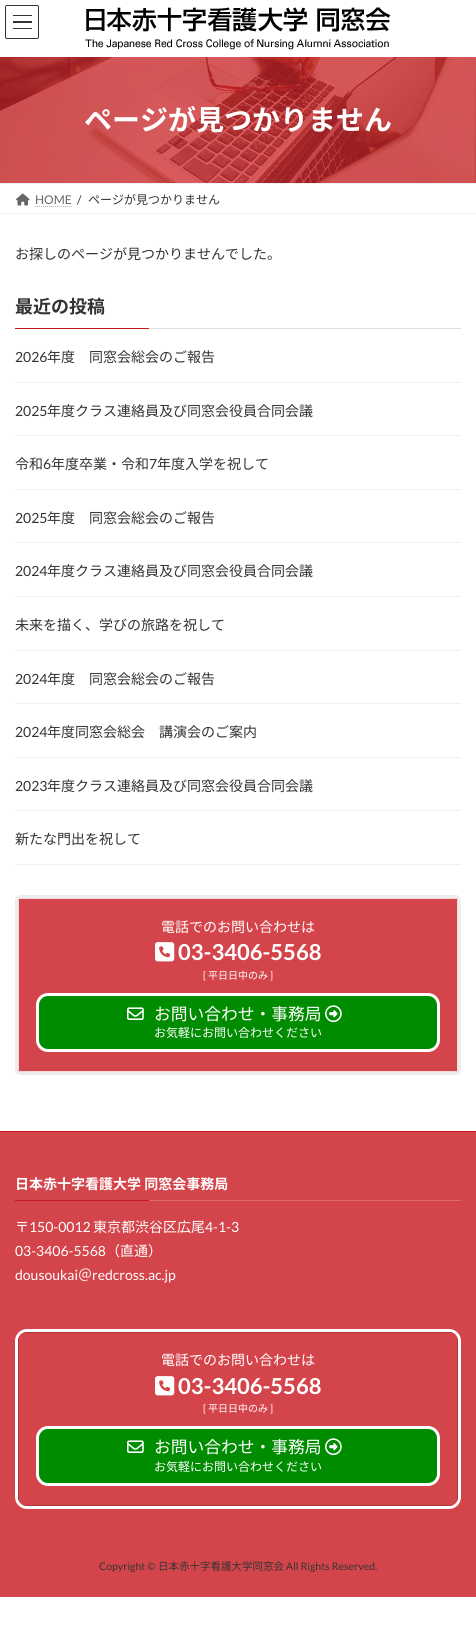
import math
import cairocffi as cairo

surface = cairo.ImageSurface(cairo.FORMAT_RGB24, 476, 1631)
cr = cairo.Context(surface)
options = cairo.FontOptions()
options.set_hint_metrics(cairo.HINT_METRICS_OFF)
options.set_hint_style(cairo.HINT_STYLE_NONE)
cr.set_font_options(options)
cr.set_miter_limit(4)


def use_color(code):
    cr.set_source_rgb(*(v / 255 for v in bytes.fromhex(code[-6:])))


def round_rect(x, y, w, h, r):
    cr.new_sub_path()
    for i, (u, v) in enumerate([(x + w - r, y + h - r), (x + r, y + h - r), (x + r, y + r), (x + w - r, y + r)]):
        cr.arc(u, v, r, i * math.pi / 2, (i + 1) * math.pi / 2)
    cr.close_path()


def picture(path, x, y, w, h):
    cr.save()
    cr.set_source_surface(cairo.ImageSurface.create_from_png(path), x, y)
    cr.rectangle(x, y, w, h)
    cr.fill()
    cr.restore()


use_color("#ffffff")
cr.paint()
use_color("#333333")
cr.rectangle(13, 15, 19, 1)
cr.fill()
cr.rectangle(13, 21, 19, 2)
cr.fill()
cr.rectangle(13, 28, 19, 1)
cr.fill()
round_rect(5.5, 5.5, 33, 33, 1.5)
cr.set_line_width(1)
cr.stroke()
picture("img1.png", 85, 7, 306, 43)
picture("img2.png", 0, 57, 476, 126)
cr.select_font_face("Noto Sans JP", cairo.FONT_SLANT_NORMAL, cairo.FONT_WEIGHT_BOLD)
cr.set_font_size(28)
use_color("#ffffff")
cr.move_to(84, 130)
cr.show_text("ページが見つかりません")
use_color("#f0f0f0")
cr.rectangle(0, 183, 476, 1)
cr.fill()
cr.rectangle(0, 213, 476, 1)
cr.fill()
picture("img3.png", 16, 193, 14, 13)
cr.select_font_face("Lato")
cr.set_font_size(12)
use_color("#666666")
cr.move_to(35, 204)
cr.show_text("HOME")
cr.new_path()
cr.move_to(35, 206.5)
cr.line_to(71.5, 206.5)
use_color("#b3b3b3")
cr.set_dash([1, 1])
cr.stroke()
use_color("#333333")
cr.move_to(77, 204)
cr.show_text("/")
cr.select_font_face("Noto Sans JP")
cr.move_to(88, 204)
cr.show_text("ページが見つかりません")
cr.set_font_size(14)
cr.move_to(15, 259)
cr.show_text("お探しのページが見つかりませんでした。")
use_color("#e0e0e0")
cr.rectangle(149, 328, 312, 1)
cr.fill()
cr.select_font_face("Noto Sans JP", cairo.FONT_SLANT_NORMAL, cairo.FONT_WEIGHT_BOLD)
cr.set_font_size(18)
use_color("#333333")
cr.move_to(15, 313)
cr.show_text("最近の投稿")
use_color("#c9171e")
cr.rectangle(15, 328, 134, 1)
cr.fill()
use_color("#f0f0f0")
cr.rectangle(15, 382, 446, 1)
cr.fill()
cr.select_font_face("Lato")
cr.set_font_size(14)
use_color("#333333")
cr.move_to(15, 362)
cr.show_text("2026")
cr.select_font_face("Noto Sans JP")
cr.move_to(47, 362)
cr.show_text("年度　同窓会総会のご報告")
use_color("#f0f0f0")
cr.rectangle(15, 435, 446, 1)
cr.fill()
cr.select_font_face("Lato")
use_color("#333333")
cr.move_to(15, 416)
cr.show_text("2025")
cr.select_font_face("Noto Sans JP")
cr.move_to(47, 416)
cr.show_text("年度クラス連絡員及び同窓会役員合同会議")
use_color("#f0f0f0")
cr.rectangle(15, 489, 446, 1)
cr.fill()
use_color("#333333")
cr.move_to(15, 469)
cr.show_text("令和")
cr.select_font_face("Lato")
cr.move_to(43, 469)
cr.show_text("6")
cr.select_font_face("Noto Sans JP")
cr.move_to(51, 469)
cr.show_text("年度卒業・令和")
cr.select_font_face("Lato")
cr.move_to(149, 469)
cr.show_text("7")
cr.select_font_face("Noto Sans JP")
cr.move_to(157, 469)
cr.show_text("年度入学を祝して")
use_color("#f0f0f0")
cr.rectangle(15, 542, 446, 1)
cr.fill()
cr.select_font_face("Lato")
use_color("#333333")
cr.move_to(15, 523)
cr.show_text("2025")
cr.select_font_face("Noto Sans JP")
cr.move_to(47, 523)
cr.show_text("年度　同窓会総会のご報告")
use_color("#f0f0f0")
cr.rectangle(15, 596, 446, 1)
cr.fill()
cr.select_font_face("Lato")
use_color("#333333")
cr.move_to(15, 576)
cr.show_text("2024")
cr.select_font_face("Noto Sans JP")
cr.move_to(47, 576)
cr.show_text("年度クラス連絡員及び同窓会役員合同会議")
use_color("#f0f0f0")
cr.rectangle(15, 650, 446, 1)
cr.fill()
use_color("#333333")
cr.move_to(15, 630)
cr.show_text("未来を描く、学びの旅路を祝して")
use_color("#f0f0f0")
cr.rectangle(15, 703, 446, 1)
cr.fill()
cr.select_font_face("Lato")
use_color("#333333")
cr.move_to(15, 684)
cr.show_text("2024")
cr.select_font_face("Noto Sans JP")
cr.move_to(47, 684)
cr.show_text("年度　同窓会総会のご報告")
use_color("#f0f0f0")
cr.rectangle(15, 757, 446, 1)
cr.fill()
cr.select_font_face("Lato")
use_color("#333333")
cr.move_to(15, 737)
cr.show_text("2024")
cr.select_font_face("Noto Sans JP")
cr.move_to(47, 737)
cr.show_text("年度同窓会総会　講演会のご案内")
use_color("#f0f0f0")
cr.rectangle(15, 810, 446, 1)
cr.fill()
cr.select_font_face("Lato")
use_color("#333333")
cr.move_to(15, 791)
cr.show_text("2023")
cr.select_font_face("Noto Sans JP")
cr.move_to(47, 791)
cr.show_text("年度クラス連絡員及び同窓会役員合同会議")
use_color("#f0f0f0")
cr.rectangle(15, 864, 446, 1)
cr.fill()
use_color("#333333")
cr.move_to(15, 844)
cr.show_text("新たな門出を祝して")
round_rect(16.5, 896.5, 443, 177, 3.5)
use_color("#ededed")
cr.set_line_width(3)
cr.set_dash([])
cr.stroke()
use_color("#d4454b")
round_rect(18, 898, 440, 174, 2)
cr.fill()
cr.set_source_rgba(1, 1, 1, 0.8)
cr.set_fill_rule(cairo.FILL_RULE_EVEN_ODD)
cr.new_path()
cr.move_to(20, 898)
cr.curve_to(19, 898, 18, 899, 18, 900)
cr.line_to(18, 1070)
cr.curve_to(18, 1071, 19, 1072, 20, 1072)
cr.line_to(456, 1072)
cr.curve_to(457, 1072, 458, 1071, 458, 1070)
cr.line_to(458, 900)
cr.curve_to(458, 899, 457, 898, 456, 898)
cr.close_path()
cr.move_to(19, 899)
cr.line_to(19, 1071)
cr.line_to(457, 1071)
cr.line_to(457, 899)
cr.close_path()
cr.fill()
use_color("#ffffff")
cr.move_to(161, 932)
cr.show_text("電話でのお問い合わせは")
picture("img4.png", 155, 942, 20, 20)
cr.select_font_face("Lato", cairo.FONT_SLANT_NORMAL, cairo.FONT_WEIGHT_BOLD)
cr.set_font_size(22)
cr.move_to(178, 960)
cr.show_text("03-3406-5568")
cr.select_font_face("Lato")
cr.set_font_size(10)
cr.move_to(203, 979)
cr.show_text("[")
cr.select_font_face("Noto Sans JP")
cr.move_to(208, 979)
cr.show_text("平日日中のみ")
cr.select_font_face("Lato")
cr.move_to(270, 979)
cr.show_text("]")
use_color("#008c00")
round_rect(37.5, 994.5, 401, 56, 10.5)
cr.fill_preserve()
use_color("#ffffff")
cr.stroke()
picture("img5.png", 127, 1007, 17, 13)
cr.select_font_face("Noto Sans JP")
cr.set_font_size(16.75)
cr.move_to(154, 1020)
cr.show_text("お問い合わせ・事務局")
picture("img6.png", 325, 1005, 17, 18)
cr.set_font_size(12)
cr.move_to(154, 1037)
cr.show_text("お気軽にお問い合わせください")
use_color("#d4454b")
cr.rectangle(0, 1132, 476, 465)
cr.fill()
use_color("#c9171e")
cr.rectangle(0, 1131, 476, 1)
cr.fill()
use_color("#dd6a6f")
cr.rectangle(149, 1200, 312, 1)
cr.fill()
cr.select_font_face("Noto Sans JP", cairo.FONT_SLANT_NORMAL, cairo.FONT_WEIGHT_BOLD)
cr.set_font_size(14)
use_color("#ffffff")
cr.move_to(15, 1189)
cr.show_text("日本赤十字看護大学 同窓会事務局")
use_color("#c9171e")
cr.rectangle(15, 1200, 134, 1)
cr.fill()
cr.select_font_face("Noto Sans JP")
use_color("#ffffff")
cr.move_to(15, 1232)
cr.show_text("〒")
cr.select_font_face("Lato")
cr.move_to(29, 1232)
cr.show_text("150-0012")
cr.select_font_face("Noto Sans JP")
cr.move_to(93, 1232)
cr.show_text("東京都渋谷区広尾")
cr.select_font_face("Lato")
cr.move_to(205, 1232)
cr.show_text("4-1-3")
cr.move_to(15, 1256)
cr.show_text("03-3406-5568")
cr.select_font_face("Noto Sans JP")
cr.move_to(106, 1256)
cr.show_text("（直通）")
cr.select_font_face("Lato")
cr.move_to(15, 1280)
cr.show_text("dousoukai")
cr.select_font_face("Noto Sans JP")
cr.move_to(78, 1280)
cr.show_text("＠")
cr.select_font_face("Lato")
cr.move_to(92, 1280)
cr.show_text("redcross.ac.jp")
round_rect(16.5, 1330.5, 443, 177, 10.5)
cr.stroke()
use_color("#d4454b")
round_rect(18, 1332, 440, 174, 9)
cr.fill()
cr.set_source_rgba(0, 0, 0, 0.2)
cr.new_path()
cr.move_to(18, 1341)
cr.line_to(18, 1497)
cr.curve_to(18, 1498, 18, 1500, 19, 1501)
cr.line_to(19, 1337)
cr.close_path()
cr.move_to(27, 1332)
cr.line_to(23, 1333)
cr.line_to(453, 1333)
cr.line_to(449, 1332)
cr.close_path()
cr.move_to(458, 1341)
cr.line_to(457, 1337)
cr.line_to(457, 1501)
cr.curve_to(458, 1500, 458, 1498, 458, 1497)
cr.close_path()
cr.move_to(449, 1506)
cr.line_to(453, 1505)
cr.line_to(23, 1505)
cr.line_to(27, 1506)
cr.close_path()
cr.fill()
cr.select_font_face("Noto Sans JP")
use_color("#ffffff")
cr.move_to(161, 1365)
cr.show_text("電話でのお問い合わせは")
picture("img4.png", 155, 1376, 20, 20)
cr.select_font_face("Lato", cairo.FONT_SLANT_NORMAL, cairo.FONT_WEIGHT_BOLD)
cr.set_font_size(22)
cr.move_to(178, 1394)
cr.show_text("03-3406-5568")
cr.select_font_face("Lato")
cr.set_font_size(10)
cr.move_to(203, 1412)
cr.show_text("[")
cr.select_font_face("Noto Sans JP")
cr.move_to(208, 1412)
cr.show_text("平日日中のみ")
cr.select_font_face("Lato")
cr.move_to(270, 1412)
cr.show_text("]")
use_color("#008c00")
round_rect(37.5, 1427.5, 401, 57, 10.5)
cr.fill_preserve()
use_color("#ffffff")
cr.stroke()
picture("img5.png", 127, 1440, 17, 13)
cr.select_font_face("Noto Sans JP")
cr.set_font_size(16.75)
cr.move_to(154, 1453)
cr.show_text("お問い合わせ・事務局")
picture("img6.png", 325, 1438, 17, 18)
cr.set_font_size(12)
cr.move_to(154, 1471)
cr.show_text("お気軽にお問い合わせください")
cr.select_font_face("Lato")
cr.set_font_size(10.5)
use_color("#333333")
cr.move_to(99, 1570)
cr.show_text("Copyright ©")
cr.select_font_face("Noto Sans JP")
cr.move_to(158, 1570)
cr.show_text("日本赤十字看護大学同窓会")
cr.select_font_face("Lato")
cr.move_to(286, 1570)
cr.show_text("All Rights Reserved.")
surface.write_to_png("result.png")
